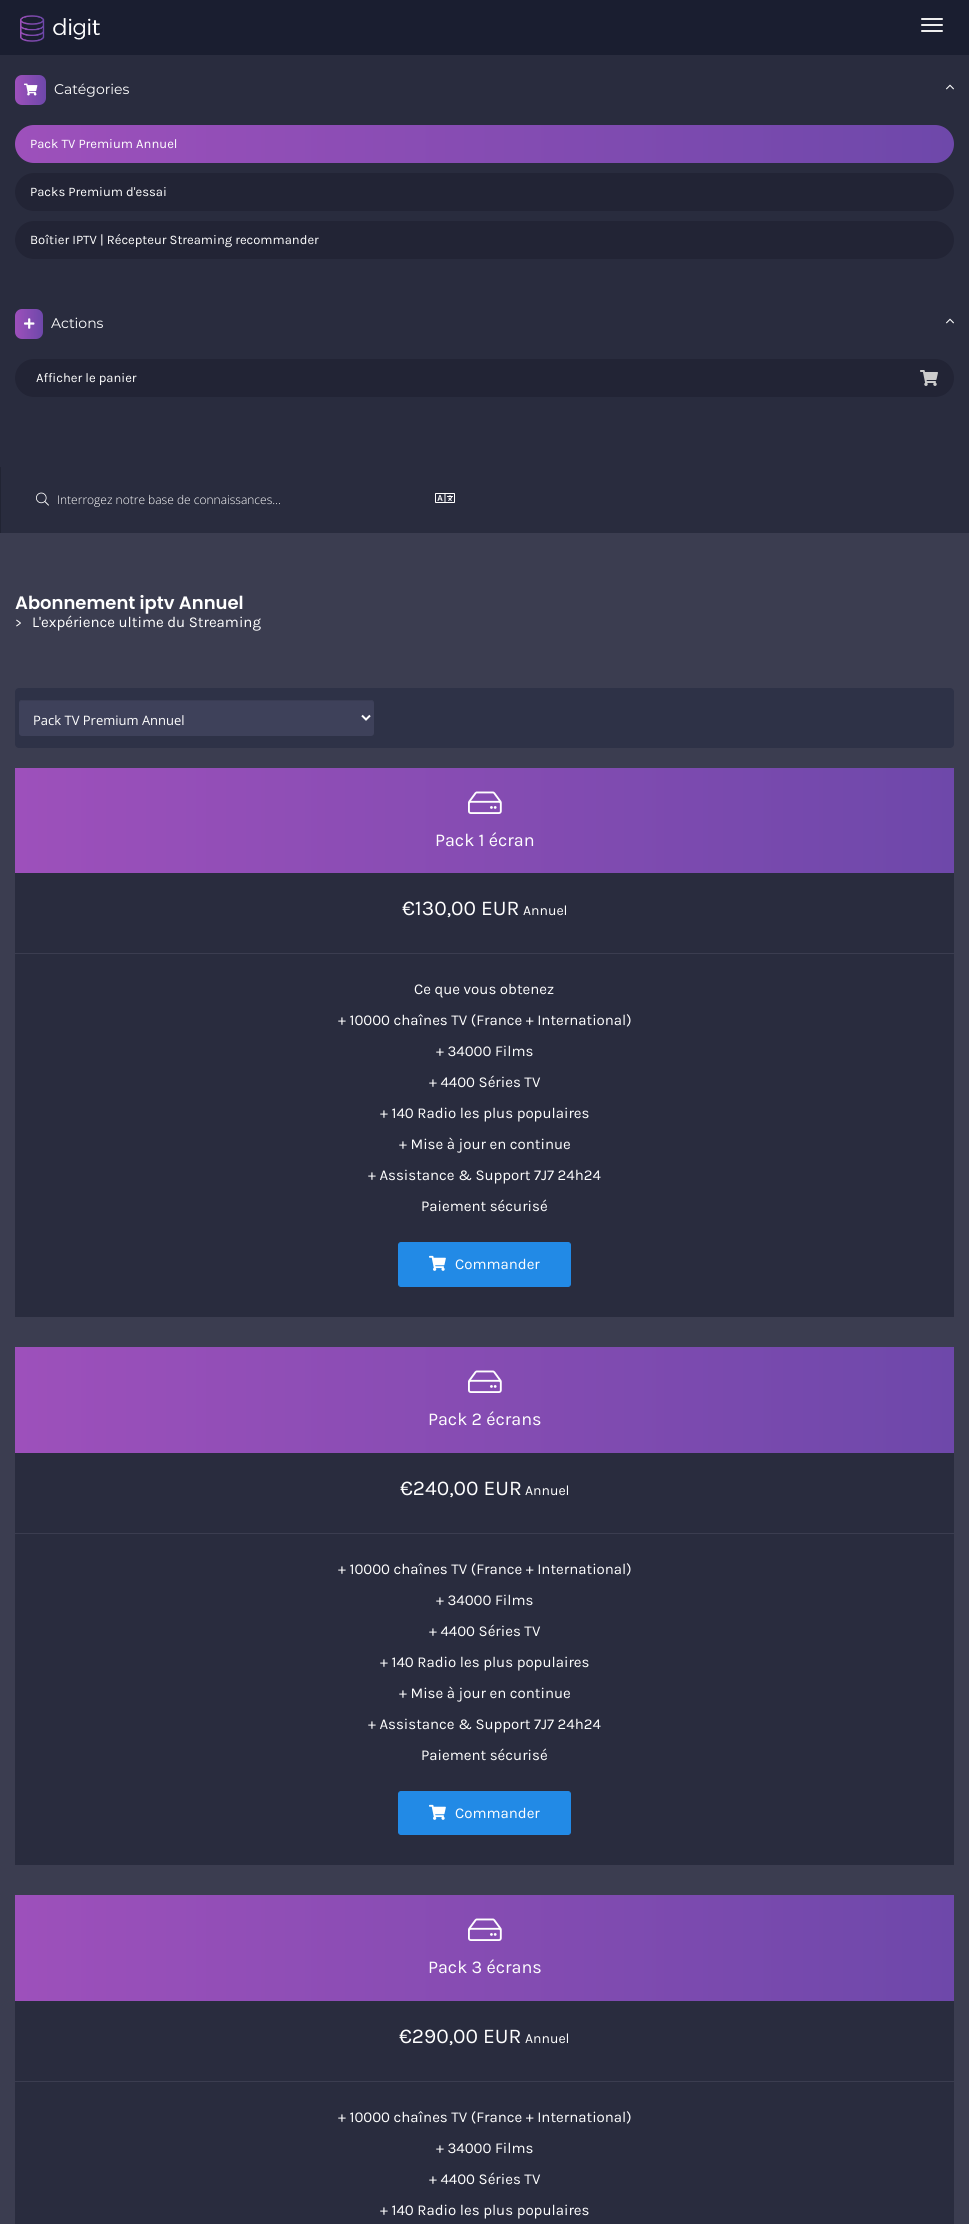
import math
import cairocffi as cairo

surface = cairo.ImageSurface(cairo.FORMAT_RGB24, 969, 2224)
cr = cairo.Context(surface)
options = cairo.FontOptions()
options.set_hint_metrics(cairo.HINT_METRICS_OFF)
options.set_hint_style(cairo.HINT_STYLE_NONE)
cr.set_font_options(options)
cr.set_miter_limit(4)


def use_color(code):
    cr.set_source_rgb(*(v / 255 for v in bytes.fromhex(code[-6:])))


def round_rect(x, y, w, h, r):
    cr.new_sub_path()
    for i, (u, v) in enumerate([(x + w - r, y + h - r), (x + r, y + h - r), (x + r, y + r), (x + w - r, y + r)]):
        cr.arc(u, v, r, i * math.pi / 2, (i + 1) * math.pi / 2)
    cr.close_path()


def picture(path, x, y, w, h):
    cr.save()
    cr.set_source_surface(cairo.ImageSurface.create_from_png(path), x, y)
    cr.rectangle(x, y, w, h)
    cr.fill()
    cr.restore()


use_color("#3b3d50")
cr.paint()
use_color("#1a1e30")
cr.rectangle(0, 0, 969, 55)
cr.fill()
picture("img1.png", 20, 15, 80, 27)
use_color("#eeeeee")
round_rect(921, 18, 22, 2, 1)
cr.fill()
round_rect(921, 24, 22, 2, 1)
cr.fill()
round_rect(921, 30, 22, 2, 1)
cr.fill()
use_color("#292c3e")
cr.rectangle(0, 55, 969, 412)
cr.fill()
gradient = cairo.LinearGradient(15, 90, 46, 90)
gradient.add_color_stop_rgba(0, 0.616, 0.314, 0.733, 1)
gradient.add_color_stop_rgba(1, 0.431, 0.282, 0.667, 1)
cr.set_source(gradient)
round_rect(15, 75, 31, 30, 7)
cr.fill()
picture("img2.png", 24, 83, 14, 13)
cr.select_font_face("Montserrat")
cr.set_font_size(14)
use_color("#ffffff")
cr.move_to(54, 94)
cr.show_text("Catégories")
picture("img3.png", 946, 84, 8, 6)
gradient = cairo.LinearGradient(15, 144, 954, 144)
gradient.add_color_stop_rgba(0, 0.616, 0.314, 0.733, 1)
gradient.add_color_stop_rgba(1, 0.431, 0.282, 0.667, 1)
cr.set_source(gradient)
round_rect(15, 125, 939, 38, 19)
cr.fill()
cr.select_font_face("Karla")
cr.set_font_size(13)
use_color("#ffffff")
cr.move_to(30, 148)
cr.show_text("Pack TV Premium Annuel")
use_color("#222435")
round_rect(15, 173, 939, 38, 19)
cr.fill()
use_color("#ffffff")
cr.move_to(30, 196)
cr.show_text("Packs Premium d'essai")
use_color("#222435")
round_rect(15, 221, 939, 38, 19)
cr.fill()
use_color("#ffffff")
cr.move_to(30, 244)
cr.show_text("Boîtier IPTV | Récepteur Streaming recommander")
gradient = cairo.LinearGradient(15, 324, 43, 324)
gradient.add_color_stop_rgba(0, 0.616, 0.314, 0.733, 1)
gradient.add_color_stop_rgba(1, 0.431, 0.282, 0.667, 1)
cr.set_source(gradient)
round_rect(15, 309, 28, 30, 7)
cr.fill()
picture("img4.png", 24, 318, 11, 11)
cr.select_font_face("Montserrat")
cr.set_font_size(14)
use_color("#ffffff")
cr.move_to(51, 328)
cr.show_text("Actions")
picture("img3.png", 946, 318, 8, 6)
use_color("#222435")
round_rect(15, 359, 939, 38, 19)
cr.fill()
cr.select_font_face("Karla")
cr.set_font_size(13)
use_color("#ffffff")
cr.move_to(36, 382)
cr.show_text("Afficher le panier")
picture("img5.png", 920, 370, 18, 16)
use_color("#292c3e")
cr.rectangle(1, 467, 968, 66)
cr.fill()
use_color("#212433")
cr.rectangle(0, 467, 1, 66)
cr.fill()
picture("img6.png", 36, 492, 13, 14)
cr.select_font_face("Open Sans Light")
cr.set_font_size(12)
use_color("#ffffff")
cr.move_to(57, 504)
cr.show_text("Interrogez notre base de connaissances...")
picture("img7.png", 435, 493, 20, 10)
cr.select_font_face("Poppins SemiBold")
cr.set_font_size(18)
cr.move_to(15, 609)
cr.show_text("Abonnement iptv Annuel")
cr.select_font_face("Karla")
cr.set_font_size(13)
cr.move_to(15, 627)
cr.show_text(">")
cr.set_font_size(15)
cr.move_to(32, 627)
cr.show_text("L'expérience ultime du Streaming")
use_color("#2e3247")
round_rect(15, 688, 939, 60, 4)
cr.fill()
use_color("#3e415a")
round_rect(19, 700, 355, 36, 3)
cr.fill()
use_color("#393c53")
cr.new_path()
cr.move_to(22, 701)
cr.line_to(371, 701)
cr.curve_to(373, 701, 374, 702, 374, 704)
cr.curve_to(374, 702, 373, 700, 371, 700)
cr.line_to(22, 700)
cr.line_to(20, 701)
cr.line_to(19, 704)
cr.curve_to(19, 702, 20, 701, 22, 701)
cr.close_path()
cr.fill()
cr.new_path()
cr.move_to(362, 715.5)
cr.line_to(366, 719.5)
cr.line_to(370, 715.5)
use_color("#ffffff")
cr.stroke()
cr.select_font_face("Open Sans")
cr.set_font_size(13)
cr.move_to(33, 725)
cr.show_text("Pack TV Premium Annuel")
use_color("#292c3e")
cr.rectangle(15, 873, 939, 444)
cr.fill()
gradient = cairo.LinearGradient(15, 821, 954, 821)
gradient.add_color_stop_rgba(0, 0.616, 0.314, 0.733, 1)
gradient.add_color_stop_rgba(1, 0.431, 0.282, 0.667, 1)
cr.set_source(gradient)
cr.rectangle(15, 768, 939, 105)
cr.fill()
picture("img8.png", 468, 791, 34, 23)
cr.select_font_face("Karla")
cr.set_font_size(18)
use_color("#ffffff")
cr.move_to(435, 846)
cr.show_text("Pack 1 écran")
use_color("#3b3d50")
cr.rectangle(15, 953, 939, 1)
cr.fill()
cr.set_font_size(21)
use_color("#ffffff")
cr.move_to(402, 915)
cr.show_text("€130,00 EUR")
cr.set_font_size(14)
cr.move_to(523, 915)
cr.show_text("Annuel")
cr.set_font_size(15)
cr.move_to(414, 994)
cr.show_text("Ce que vous obtenez")
cr.move_to(338, 1025)
cr.show_text("+ 10000 chaînes TV (France + International)")
cr.move_to(436, 1056)
cr.show_text("+ 34000 Films")
cr.move_to(429, 1087)
cr.show_text("+ 4400 Séries TV")
cr.move_to(380, 1118)
cr.show_text("+ 140 Radio les plus populaires")
cr.move_to(399, 1149)
cr.show_text("+ Mise à jour en continue")
cr.move_to(368, 1180)
cr.show_text("+ Assistance & Support 7J7 24h24")
cr.move_to(421, 1211)
cr.show_text("Paiement sécurisé")
use_color("#228ae6")
round_rect(398.5, 1242.5, 172, 44, 2.5)
cr.fill_preserve()
cr.set_line_width(1)
cr.stroke()
picture("img9.png", 429, 1255, 17, 16)
use_color("#ffffff")
cr.move_to(455, 1269)
cr.show_text("Commander")
use_color("#292c3e")
cr.rectangle(15, 1453, 939, 412)
cr.fill()
gradient = cairo.LinearGradient(15, 1400, 954, 1400)
gradient.add_color_stop_rgba(0, 0.616, 0.314, 0.733, 1)
gradient.add_color_stop_rgba(1, 0.431, 0.282, 0.667, 1)
cr.set_source(gradient)
cr.rectangle(15, 1347, 939, 106)
cr.fill()
picture("img8.png", 468, 1370, 34, 23)
cr.set_font_size(18)
use_color("#ffffff")
cr.move_to(428, 1425)
cr.show_text("Pack 2 écrans")
use_color("#3b3d50")
cr.rectangle(15, 1533, 939, 1)
cr.fill()
cr.set_font_size(21)
use_color("#ffffff")
cr.move_to(400, 1495)
cr.show_text("€240,00 EUR")
cr.set_font_size(14)
cr.move_to(525, 1495)
cr.show_text("Annuel")
cr.set_font_size(15)
cr.move_to(338, 1574)
cr.show_text("+ 10000 chaînes TV (France + International)")
cr.move_to(436, 1605)
cr.show_text("+ 34000 Films")
cr.move_to(429, 1636)
cr.show_text("+ 4400 Séries TV")
cr.move_to(380, 1667)
cr.show_text("+ 140 Radio les plus populaires")
cr.move_to(399, 1698)
cr.show_text("+ Mise à jour en continue")
cr.move_to(368, 1729)
cr.show_text("+ Assistance & Support 7J7 24h24")
cr.move_to(421, 1760)
cr.show_text("Paiement sécurisé")
use_color("#228ae6")
round_rect(398.5, 1791.5, 172, 43, 2.5)
cr.fill_preserve()
cr.stroke()
picture("img9.png", 429, 1804, 17, 16)
use_color("#ffffff")
cr.move_to(455, 1818)
cr.show_text("Commander")
use_color("#292c3e")
cr.rectangle(15, 2001, 939, 223)
cr.fill()
gradient = cairo.LinearGradient(15, 1948, 954, 1948)
gradient.add_color_stop_rgba(0, 0.616, 0.314, 0.733, 1)
gradient.add_color_stop_rgba(1, 0.431, 0.282, 0.667, 1)
cr.set_source(gradient)
cr.rectangle(15, 1895, 939, 106)
cr.fill()
picture("img8.png", 468, 1918, 34, 23)
cr.set_font_size(18)
use_color("#ffffff")
cr.move_to(428, 1973)
cr.show_text("Pack 3 écrans")
use_color("#3b3d50")
cr.rectangle(15, 2081, 939, 1)
cr.fill()
cr.set_font_size(21)
use_color("#ffffff")
cr.move_to(399, 2043)
cr.show_text("€290,00 EUR")
cr.set_font_size(14)
cr.move_to(525, 2043)
cr.show_text("Annuel")
cr.set_font_size(15)
cr.move_to(338, 2122)
cr.show_text("+ 10000 chaînes TV (France + International)")
cr.move_to(436, 2153)
cr.show_text("+ 34000 Films")
cr.move_to(429, 2184)
cr.show_text("+ 4400 Séries TV")
cr.move_to(380, 2215)
cr.show_text("+ 140 Radio les plus populaires")
surface.write_to_png("result.png")
